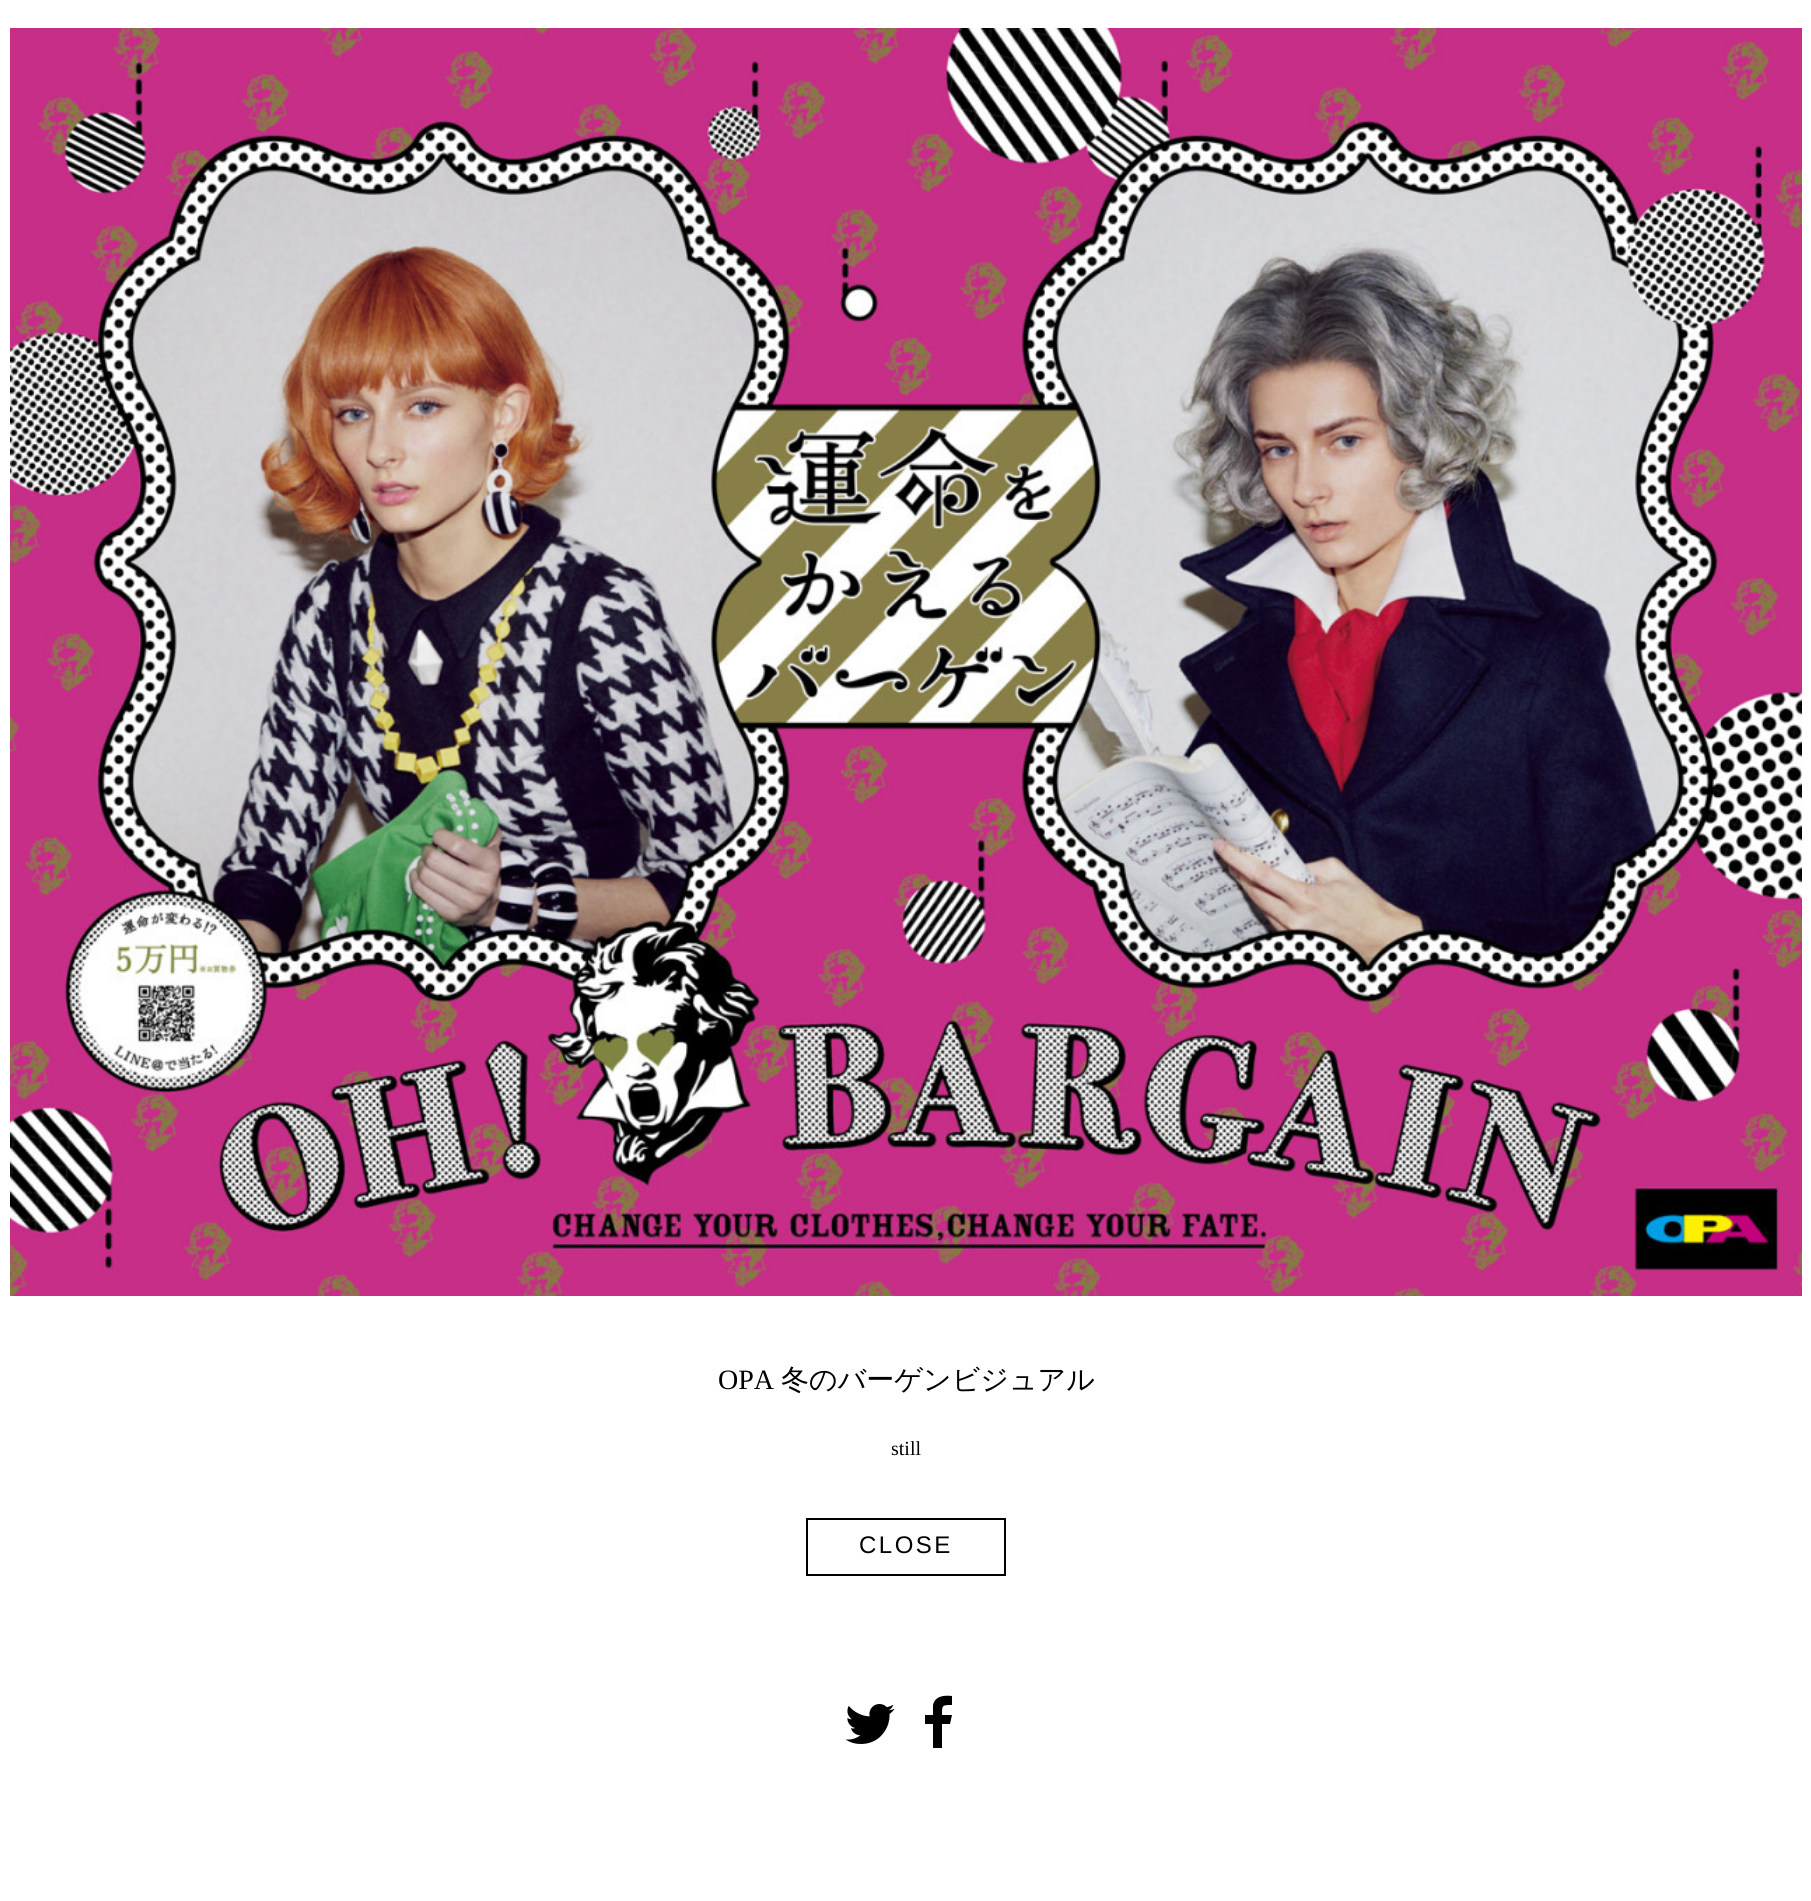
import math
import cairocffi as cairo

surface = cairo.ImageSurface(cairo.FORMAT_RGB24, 1811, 1901)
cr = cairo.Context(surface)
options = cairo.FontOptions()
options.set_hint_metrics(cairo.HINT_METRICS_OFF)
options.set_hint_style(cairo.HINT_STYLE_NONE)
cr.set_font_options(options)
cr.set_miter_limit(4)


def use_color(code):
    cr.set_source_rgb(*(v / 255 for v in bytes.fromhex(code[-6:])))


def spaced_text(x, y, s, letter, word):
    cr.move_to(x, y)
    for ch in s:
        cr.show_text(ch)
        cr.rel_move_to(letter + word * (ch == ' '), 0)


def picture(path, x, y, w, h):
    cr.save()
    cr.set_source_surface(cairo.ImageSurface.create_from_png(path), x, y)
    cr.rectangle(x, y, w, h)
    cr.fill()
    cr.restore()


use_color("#ffffff")
cr.paint()
picture("img1.png", 10, 28, 1792, 1268)
cr.select_font_face("Liberation Serif")
cr.set_font_size(28)
use_color("#000000")
cr.move_to(718, 1389)
cr.show_text("OPA")
cr.select_font_face("WenQuanYi Zen Hei Medium")
cr.move_to(781, 1389)
cr.show_text("冬のバーゲンビジュアル")
cr.select_font_face("Liberation Serif")
cr.set_font_size(20)
cr.move_to(891, 1455)
cr.show_text("still")
cr.rectangle(807, 1519, 198, 56)
cr.stroke()
cr.select_font_face("Liberation Sans")
cr.set_font_size(24)
spaced_text(859, 1553, "CLOSE", 2.5, 0)
picture("img2.png", 845, 1704, 50, 40)
cr.new_path()
cr.move_to(952, 1696)
cr.line_to(952, 1705)
cr.curve_to(942, 1705, 942, 1705, 942, 1715)
cr.line_to(952, 1715)
cr.line_to(950, 1724)
cr.line_to(942, 1724)
cr.line_to(942, 1748)
cr.line_to(933, 1748)
cr.line_to(933, 1724)
cr.line_to(925, 1724)
cr.line_to(925, 1715)
cr.line_to(933, 1715)
cr.line_to(933, 1705)
cr.curve_to(935, 1696, 944, 1695, 952, 1696)
cr.close_path()
cr.fill()
surface.write_to_png("result.png")
